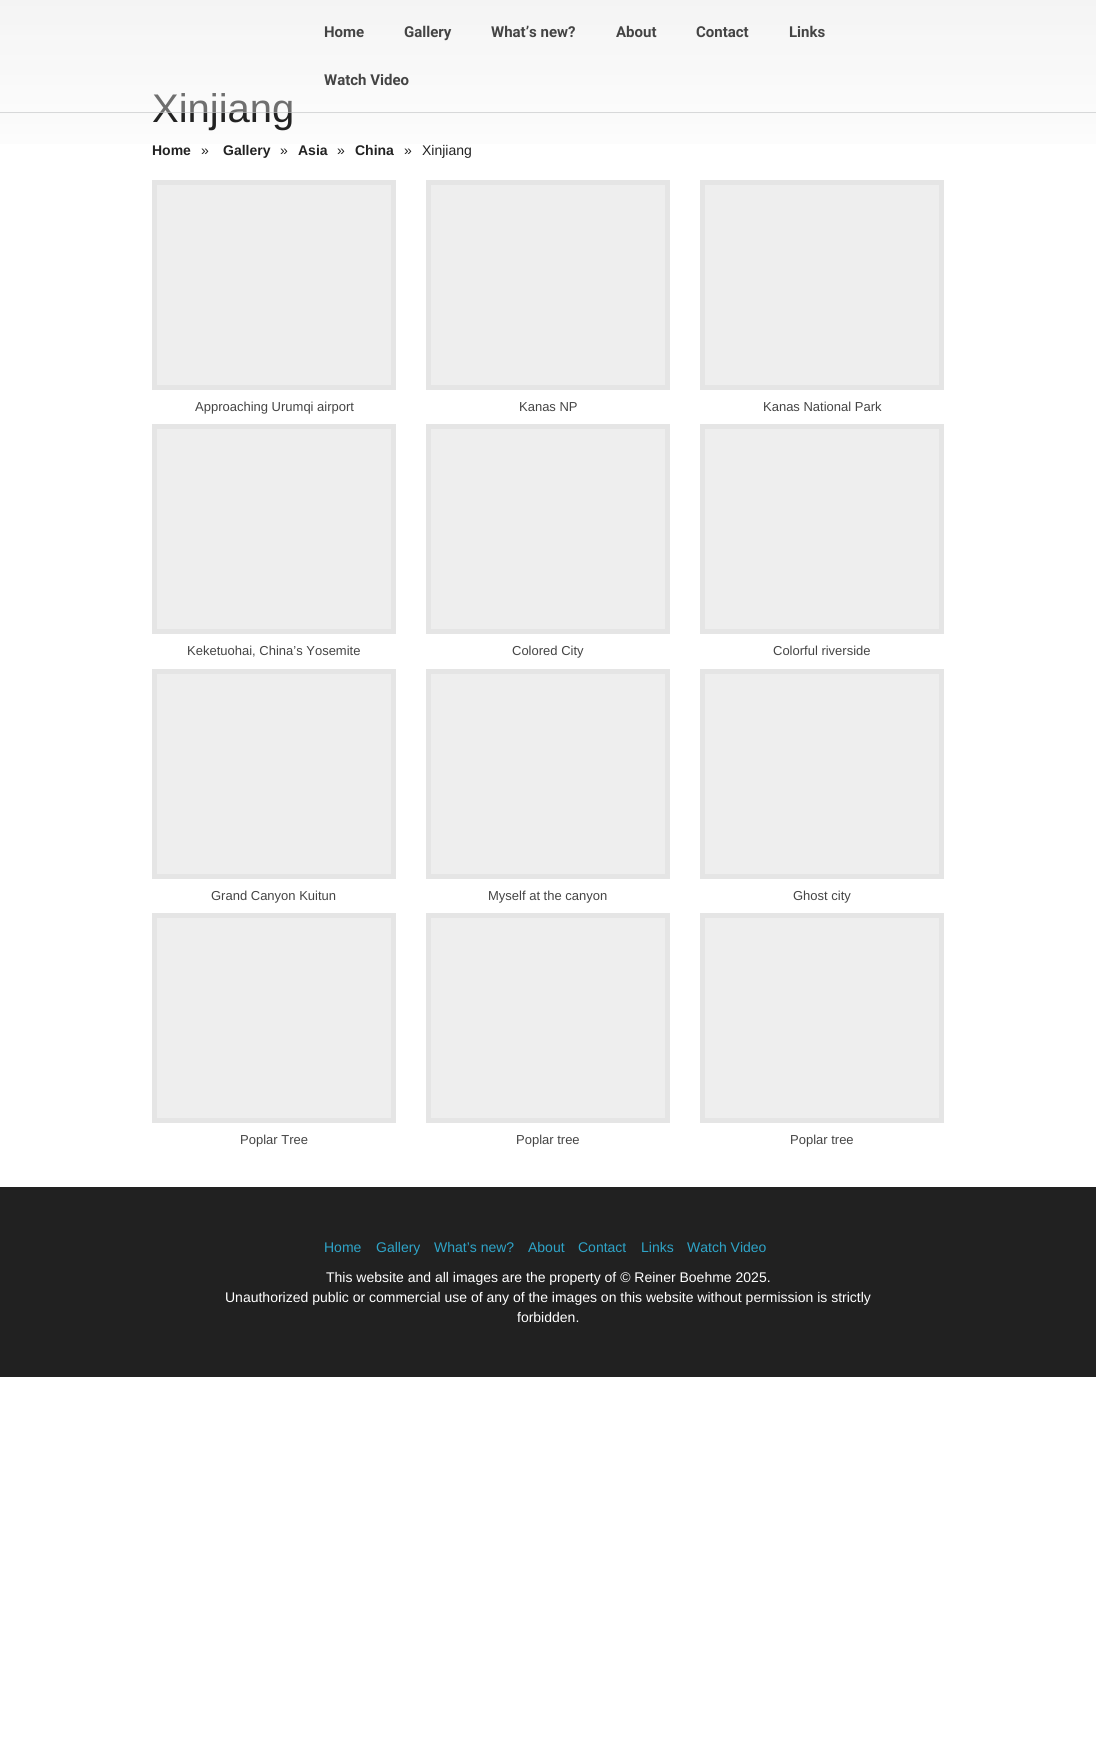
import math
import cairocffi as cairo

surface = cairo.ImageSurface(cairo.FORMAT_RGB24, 1096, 1740)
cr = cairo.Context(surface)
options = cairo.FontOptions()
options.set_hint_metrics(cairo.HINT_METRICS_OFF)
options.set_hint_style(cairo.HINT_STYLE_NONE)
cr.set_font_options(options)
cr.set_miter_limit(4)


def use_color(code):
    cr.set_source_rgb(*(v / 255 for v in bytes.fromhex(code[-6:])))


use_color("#ffffff")
cr.paint()
gradient = cairo.LinearGradient(548, 0, 548, 170)
gradient.add_color_stop_rgba(0, 0.933, 0.933, 0.933, 1)
gradient.add_color_stop_rgba(0.99, 1, 1, 1, 1)
gradient.add_color_stop_rgba(1, 1, 1, 1, 1)
cr.set_source(gradient)
cr.rectangle(0, 0, 1096, 144)
cr.fill()
cr.select_font_face("Liberation Sans")
cr.set_font_size(40)
use_color("#222222")
cr.move_to(152, 122)
cr.show_text("Xinjiang")
cr.set_source_rgba(1, 1, 1, 0.35)
cr.rectangle(0, 0, 1096, 113)
cr.fill()
cr.set_source_rgba(0.706, 0.718, 0.722, 0.5)
cr.rectangle(0, 112, 1096, 1)
cr.fill()
cr.select_font_face("Roboto", cairo.FONT_SLANT_NORMAL, cairo.FONT_WEIGHT_BOLD)
cr.set_font_size(15)
use_color("#444444")
cr.move_to(324, 37)
cr.show_text("Home")
cr.move_to(404, 37)
cr.show_text("Gallery")
cr.move_to(491, 37)
cr.show_text("What’s new?")
cr.move_to(616, 37)
cr.show_text("About")
cr.move_to(696, 37)
cr.show_text("Contact")
cr.move_to(789, 37)
cr.show_text("Links")
cr.move_to(324, 85)
cr.show_text("Watch Video")
cr.select_font_face("Liberation Sans", cairo.FONT_SLANT_NORMAL, cairo.FONT_WEIGHT_BOLD)
cr.set_font_size(14)
use_color("#222222")
cr.move_to(152, 155)
cr.show_text("Home")
cr.select_font_face("Liberation Sans")
cr.move_to(201, 155)
cr.show_text("»")
cr.select_font_face("Liberation Sans", cairo.FONT_SLANT_NORMAL, cairo.FONT_WEIGHT_BOLD)
cr.move_to(223, 155)
cr.show_text("Gallery")
cr.select_font_face("Liberation Sans")
cr.move_to(280, 155)
cr.show_text("»")
cr.select_font_face("Liberation Sans", cairo.FONT_SLANT_NORMAL, cairo.FONT_WEIGHT_BOLD)
cr.move_to(298, 155)
cr.show_text("Asia")
cr.select_font_face("Liberation Sans")
cr.move_to(337, 155)
cr.show_text("»")
cr.select_font_face("Liberation Sans", cairo.FONT_SLANT_NORMAL, cairo.FONT_WEIGHT_BOLD)
cr.move_to(355, 155)
cr.show_text("China")
cr.select_font_face("Liberation Sans")
cr.move_to(404, 155)
cr.show_text("»")
cr.move_to(422, 155)
cr.show_text("Xinjiang")
use_color("#eeeeee")
cr.rectangle(154.5, 182.5, 239, 205)
cr.fill_preserve()
use_color("#e5e5e5")
cr.set_line_width(5)
cr.stroke()
cr.set_font_size(13)
use_color("#444444")
cr.move_to(195, 411)
cr.show_text("Approaching Urumqi airport")
use_color("#eeeeee")
cr.rectangle(428.5, 182.5, 239, 205)
cr.fill_preserve()
use_color("#e5e5e5")
cr.stroke()
use_color("#444444")
cr.move_to(519, 411)
cr.show_text("Kanas NP")
use_color("#eeeeee")
cr.rectangle(702.5, 182.5, 239, 205)
cr.fill_preserve()
use_color("#e5e5e5")
cr.stroke()
use_color("#444444")
cr.move_to(763, 411)
cr.show_text("Kanas National Park")
use_color("#eeeeee")
cr.rectangle(154.5, 426.5, 239, 205)
cr.fill_preserve()
use_color("#e5e5e5")
cr.stroke()
use_color("#444444")
cr.move_to(187, 655)
cr.show_text("Keketuohai, China’s Yosemite")
use_color("#eeeeee")
cr.rectangle(428.5, 426.5, 239, 205)
cr.fill_preserve()
use_color("#e5e5e5")
cr.stroke()
use_color("#444444")
cr.move_to(512, 655)
cr.show_text("Colored City")
use_color("#eeeeee")
cr.rectangle(702.5, 426.5, 239, 205)
cr.fill_preserve()
use_color("#e5e5e5")
cr.stroke()
use_color("#444444")
cr.move_to(773, 655)
cr.show_text("Colorful riverside")
use_color("#eeeeee")
cr.rectangle(154.5, 671.5, 239, 205)
cr.fill_preserve()
use_color("#e5e5e5")
cr.stroke()
use_color("#444444")
cr.move_to(211, 900)
cr.show_text("Grand Canyon Kuitun")
use_color("#eeeeee")
cr.rectangle(428.5, 671.5, 239, 205)
cr.fill_preserve()
use_color("#e5e5e5")
cr.stroke()
use_color("#444444")
cr.move_to(488, 900)
cr.show_text("Myself at the canyon")
use_color("#eeeeee")
cr.rectangle(702.5, 671.5, 239, 205)
cr.fill_preserve()
use_color("#e5e5e5")
cr.stroke()
use_color("#444444")
cr.move_to(793, 900)
cr.show_text("Ghost city")
use_color("#eeeeee")
cr.rectangle(154.5, 915.5, 239, 205)
cr.fill_preserve()
use_color("#e5e5e5")
cr.stroke()
use_color("#444444")
cr.move_to(240, 1144)
cr.show_text("Poplar Tree")
use_color("#eeeeee")
cr.rectangle(428.5, 915.5, 239, 205)
cr.fill_preserve()
use_color("#e5e5e5")
cr.stroke()
use_color("#444444")
cr.move_to(516, 1144)
cr.show_text("Poplar tree")
use_color("#eeeeee")
cr.rectangle(702.5, 915.5, 239, 205)
cr.fill_preserve()
use_color("#e5e5e5")
cr.stroke()
use_color("#444444")
cr.move_to(790, 1144)
cr.show_text("Poplar tree")
use_color("#212121")
cr.rectangle(0, 1187, 1096, 190)
cr.fill()
cr.set_font_size(14)
use_color("#2ea4c8")
cr.move_to(324, 1252)
cr.show_text("Home")
cr.move_to(376, 1252)
cr.show_text("Gallery")
cr.move_to(434, 1252)
cr.show_text("What’s new?")
cr.move_to(528, 1252)
cr.show_text("About")
cr.move_to(578, 1252)
cr.show_text("Contact")
cr.move_to(641, 1252)
cr.show_text("Links")
cr.move_to(687, 1252)
cr.show_text("Watch Video")
use_color("#ffffff")
cr.move_to(326, 1282)
cr.show_text("This website and all images are the property of © Reiner Boehme 2025.")
cr.move_to(225, 1302)
cr.show_text("Unauthorized public or commercial use of any of the images on this website without permission is strictly")
cr.move_to(517, 1322)
cr.show_text("forbidden.")
surface.write_to_png("result.png")
